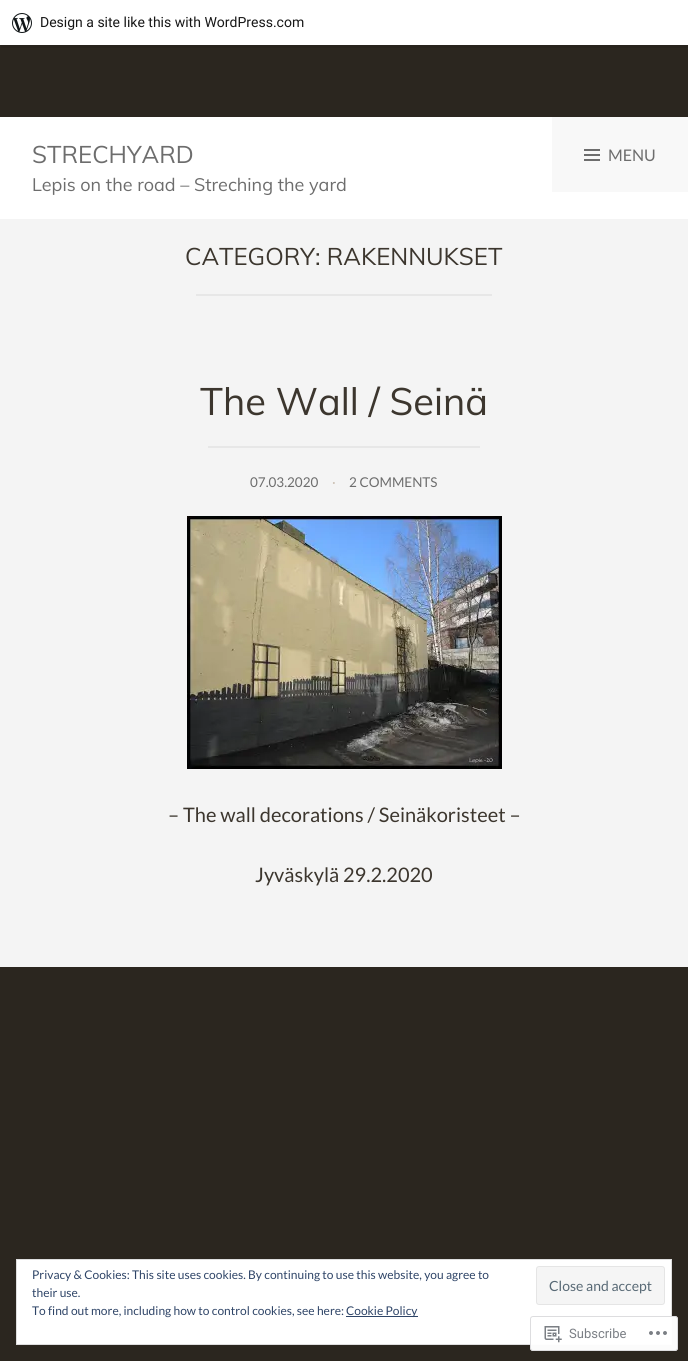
import math
import cairocffi as cairo

surface = cairo.ImageSurface(cairo.FORMAT_RGB24, 688, 1361)
cr = cairo.Context(surface)
options = cairo.FontOptions()
options.set_hint_metrics(cairo.HINT_METRICS_OFF)
options.set_hint_style(cairo.HINT_STYLE_NONE)
cr.set_font_options(options)
cr.set_miter_limit(4)


def use_color(code):
    cr.set_source_rgb(*(v / 255 for v in bytes.fromhex(code[-6:])))


def round_rect(x, y, w, h, r):
    cr.new_sub_path()
    for i, (u, v) in enumerate([(x + w - r, y + h - r), (x + r, y + h - r), (x + r, y + r), (x + w - r, y + r)]):
        cr.arc(u, v, r, i * math.pi / 2, (i + 1) * math.pi / 2)
    cr.close_path()


def picture(path, x, y, w, h):
    cr.save()
    cr.set_source_surface(cairo.ImageSurface.create_from_png(path), x, y)
    cr.rectangle(x, y, w, h)
    cr.fill()
    cr.restore()


use_color("#2b261f")
cr.paint()
use_color("#28231d")
cr.new_path()
cr.move_to(1, 45)
cr.line_to(1, 48)
cr.line_to(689, 48)
cr.line_to(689, 3)
cr.line_to(688, 3)
cr.line_to(688, 45)
cr.close_path()
cr.fill()
use_color("#ffffff")
cr.rectangle(0, 0, 688, 45)
cr.fill()
picture("img1.png", 12, 13, 20, 20)
cr.select_font_face("Roboto")
cr.set_font_size(14)
use_color("#171717")
cr.move_to(40, 27)
cr.show_text("Design a site like this with WordPress.com")
use_color("#ffffff")
cr.rectangle(0, 117, 688, 102)
cr.fill()
cr.select_font_face("Muli")
cr.set_font_size(24)
use_color("#6d6d6d")
cr.move_to(32, 163)
cr.show_text("STRECHYARD")
cr.set_font_size(18)
cr.move_to(32, 191)
cr.show_text("Lepis on the road – Streching the yard")
use_color("#f8f8f8")
cr.rectangle(552, 117, 136, 75)
cr.fill()
picture("img2.png", 584, 149, 16, 12)
cr.select_font_face("Lato")
cr.set_font_size(16)
use_color("#6d6d6d")
cr.move_to(608, 161)
cr.show_text("MENU")
use_color("#f4f4f4")
cr.rectangle(0, 219, 688, 748)
cr.fill()
cr.select_font_face("Muli")
cr.set_font_size(24)
use_color("#3c362e")
cr.move_to(185, 265)
cr.show_text("CATEGORY: RAKENNUKSET")
use_color("#e7e7e7")
cr.rectangle(196, 294, 296, 2)
cr.fill()
cr.set_font_size(38)
use_color("#3c362e")
cr.move_to(200, 415)
cr.show_text("The Wall / Seinä")
use_color("#e7e7e7")
cr.rectangle(208, 446, 272, 2)
cr.fill()
cr.select_font_face("Lato")
cr.set_font_size(13.5)
use_color("#6d6d6d")
cr.move_to(250, 487)
cr.show_text("07.03.2020")
use_color("#cabfb2")
cr.move_to(332, 487)
cr.show_text("·")
use_color("#6d6d6d")
cr.move_to(349, 487)
cr.show_text("2 COMMENTS")
picture("img3.png", 187, 516, 315, 253)
cr.set_font_size(20)
use_color("#3c362e")
cr.move_to(168, 822)
cr.show_text("– The wall decorations / Seinäkoristeet –")
cr.move_to(255, 882)
cr.show_text("Jyväskylä 29.2.2020")
use_color("#ffffff")
cr.rectangle(16.5, 1259.5, 655, 85)
cr.fill_preserve()
use_color("#dedede")
cr.set_line_width(1)
cr.stroke()
cr.set_font_size(12)
use_color("#2e4467")
cr.move_to(32, 1279)
cr.show_text("Privacy & Cookies: This site uses cookies. By continuing to use this website, you agree to")
cr.move_to(32, 1297)
cr.show_text("their use.")
use_color("#f5f5f5")
round_rect(536.5, 1266.5, 128, 38, 2.5)
cr.fill_preserve()
use_color("#e5e5e5")
cr.stroke()
cr.set_font_size(14)
use_color("#586975")
cr.move_to(549, 1291)
cr.show_text("Close and accept")
cr.set_font_size(12)
use_color("#2e4467")
cr.move_to(32, 1315)
cr.show_text("To find out more, including how to control cookies, see here:")
cr.rectangle(346, 1316, 72, 1)
cr.fill()
cr.move_to(346, 1315)
cr.show_text("Cookie Policy")
cr.set_source_rgba(1, 1, 1, 0.98)
round_rect(530, 1316, 148, 35, 3)
cr.fill()
round_rect(530.5, 1316.5, 147, 34, 2.5)
cr.set_source_rgba(0.863, 0.863, 0.871, 0.98)
cr.stroke()
picture("img4.png", 544, 1326, 18, 17)
cr.select_font_face("Roboto")
cr.set_font_size(13)
use_color("#7b7f85")
cr.move_to(569, 1338)
cr.show_text("Subscribe")
picture("img5.png", 649, 1331, 18, 4)
surface.write_to_png("result.png")
